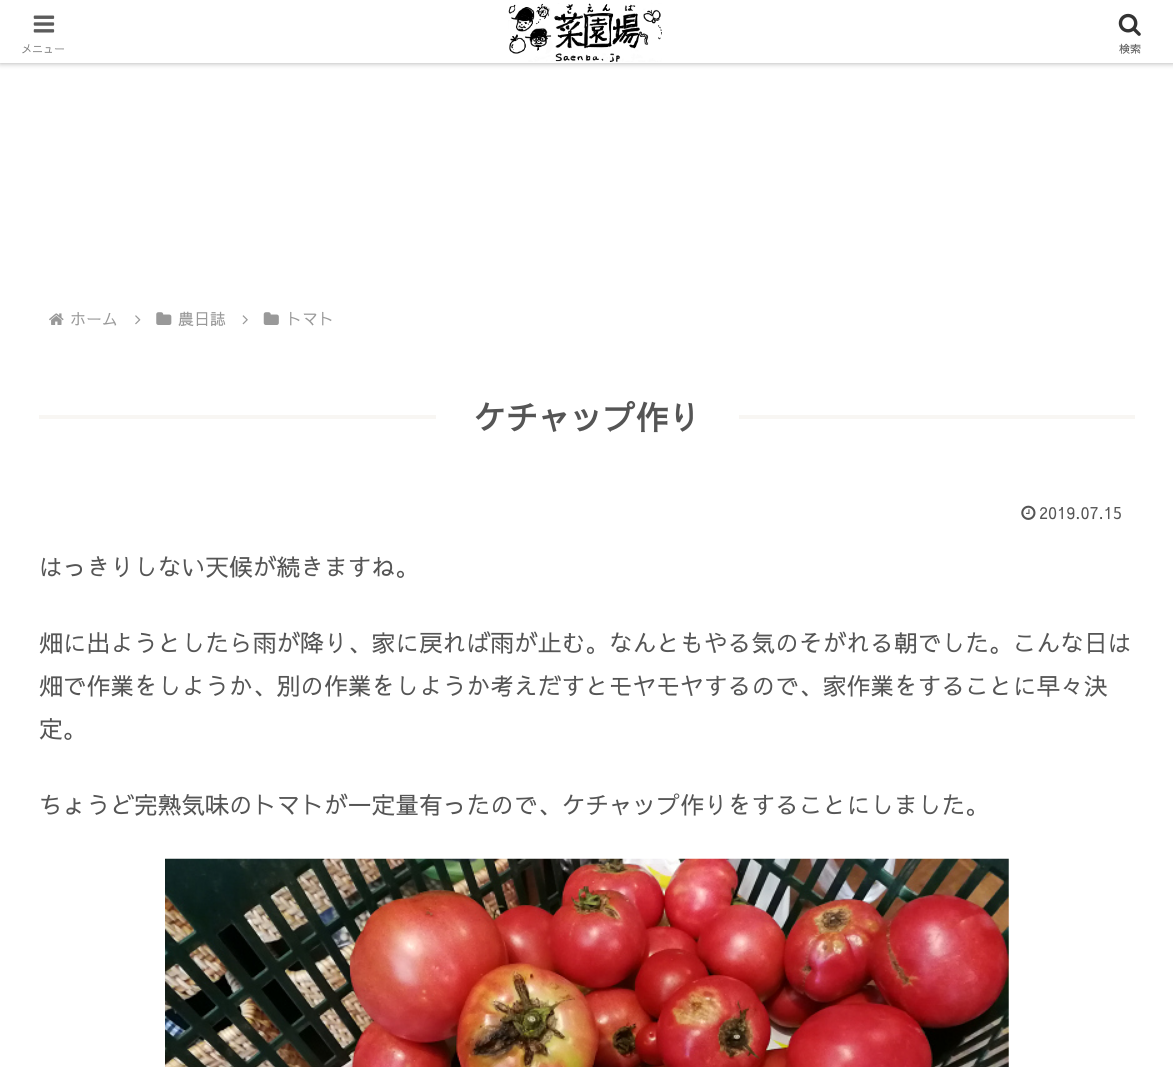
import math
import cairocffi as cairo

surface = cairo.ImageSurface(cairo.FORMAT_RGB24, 1173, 1067)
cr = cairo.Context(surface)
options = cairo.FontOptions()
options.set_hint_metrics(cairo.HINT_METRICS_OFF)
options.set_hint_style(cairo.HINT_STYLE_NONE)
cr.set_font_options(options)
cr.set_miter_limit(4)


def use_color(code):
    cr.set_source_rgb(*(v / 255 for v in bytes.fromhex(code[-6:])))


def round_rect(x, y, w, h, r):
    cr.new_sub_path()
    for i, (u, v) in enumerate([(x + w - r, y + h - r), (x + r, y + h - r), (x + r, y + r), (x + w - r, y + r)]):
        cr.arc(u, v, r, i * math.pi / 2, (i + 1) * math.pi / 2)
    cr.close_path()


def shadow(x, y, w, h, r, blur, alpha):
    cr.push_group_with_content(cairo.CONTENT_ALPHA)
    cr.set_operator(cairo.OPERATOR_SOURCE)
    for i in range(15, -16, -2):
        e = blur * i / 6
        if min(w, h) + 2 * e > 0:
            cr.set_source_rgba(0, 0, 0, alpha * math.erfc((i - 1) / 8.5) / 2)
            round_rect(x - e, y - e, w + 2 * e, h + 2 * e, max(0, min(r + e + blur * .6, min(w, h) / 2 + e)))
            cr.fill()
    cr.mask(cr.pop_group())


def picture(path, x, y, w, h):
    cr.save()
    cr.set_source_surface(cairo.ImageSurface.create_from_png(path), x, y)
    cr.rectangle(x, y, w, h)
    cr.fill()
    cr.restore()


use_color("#ffffff")
cr.paint()
use_color("#a9a9a9")
shadow(0, 0, 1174, 63, 0, 3, 1)
use_color("#ffffff")
cr.rectangle(0, 0, 1173, 63)
cr.fill()
picture("img1.png", 33, 15, 22, 18)
cr.select_font_face("Sawarabi Gothic")
cr.set_font_size(11)
use_color("#7c7c7c")
cr.move_to(21, 53)
cr.show_text("メニュー")
picture("img2.png", 508, 3, 154, 59)
picture("img3.png", 1118, 13, 23, 23)
use_color("#5c5c5c")
cr.move_to(1119, 53)
cr.show_text("検索")
picture("img4.png", 49, 313, 15, 12)
cr.set_font_size(16)
use_color("#999999")
cr.move_to(70, 325)
cr.show_text("ホーム")
picture("img5.png", 135, 315, 6, 10)
picture("img6.png", 156, 312, 16, 13)
cr.move_to(178, 325)
cr.show_text("農日誌")
picture("img7.png", 242, 315, 6, 10)
picture("img8.png", 263, 312, 16, 13)
cr.move_to(286, 325)
cr.show_text("トマト")
use_color("#f8f6f3")
cr.rectangle(39, 415, 397, 4)
cr.fill()
cr.select_font_face("Sawarabi Gothic", cairo.FONT_SLANT_NORMAL, cairo.FONT_WEIGHT_BOLD)
cr.set_font_size(32.5)
use_color("#555555")
cr.move_to(473, 430)
cr.show_text("ケチャップ作り")
use_color("#f8f6f3")
cr.rectangle(739, 415, 396, 4)
cr.fill()
picture("img9.png", 1021, 505, 15, 15)
cr.select_font_face("Sawarabi Gothic")
cr.set_font_size(16.5)
use_color("#555555")
cr.move_to(1039, 519)
cr.show_text("2019.07.15")
cr.set_font_size(23.75)
cr.move_to(39, 576)
cr.show_text("はっきりしない天候が続きますね。")
cr.move_to(39, 652)
cr.show_text("畑に出ようとしたら雨が降り、家に戻れば雨が止む。なんともやる気のそがれる朝でした。こんな日は")
cr.move_to(39, 695)
cr.show_text("畑で作業をしようか、別の作業をしようか考えだすとモヤモヤするので、家作業をすることに早々決")
cr.move_to(39, 738)
cr.show_text("定。")
cr.move_to(39, 814)
cr.show_text("ちょうど完熟気味のトマトが一定量有ったので、ケチャップ作りをすることにしました。")
picture("img10.png", 165, 858, 844, 209)
surface.write_to_png("result.png")
